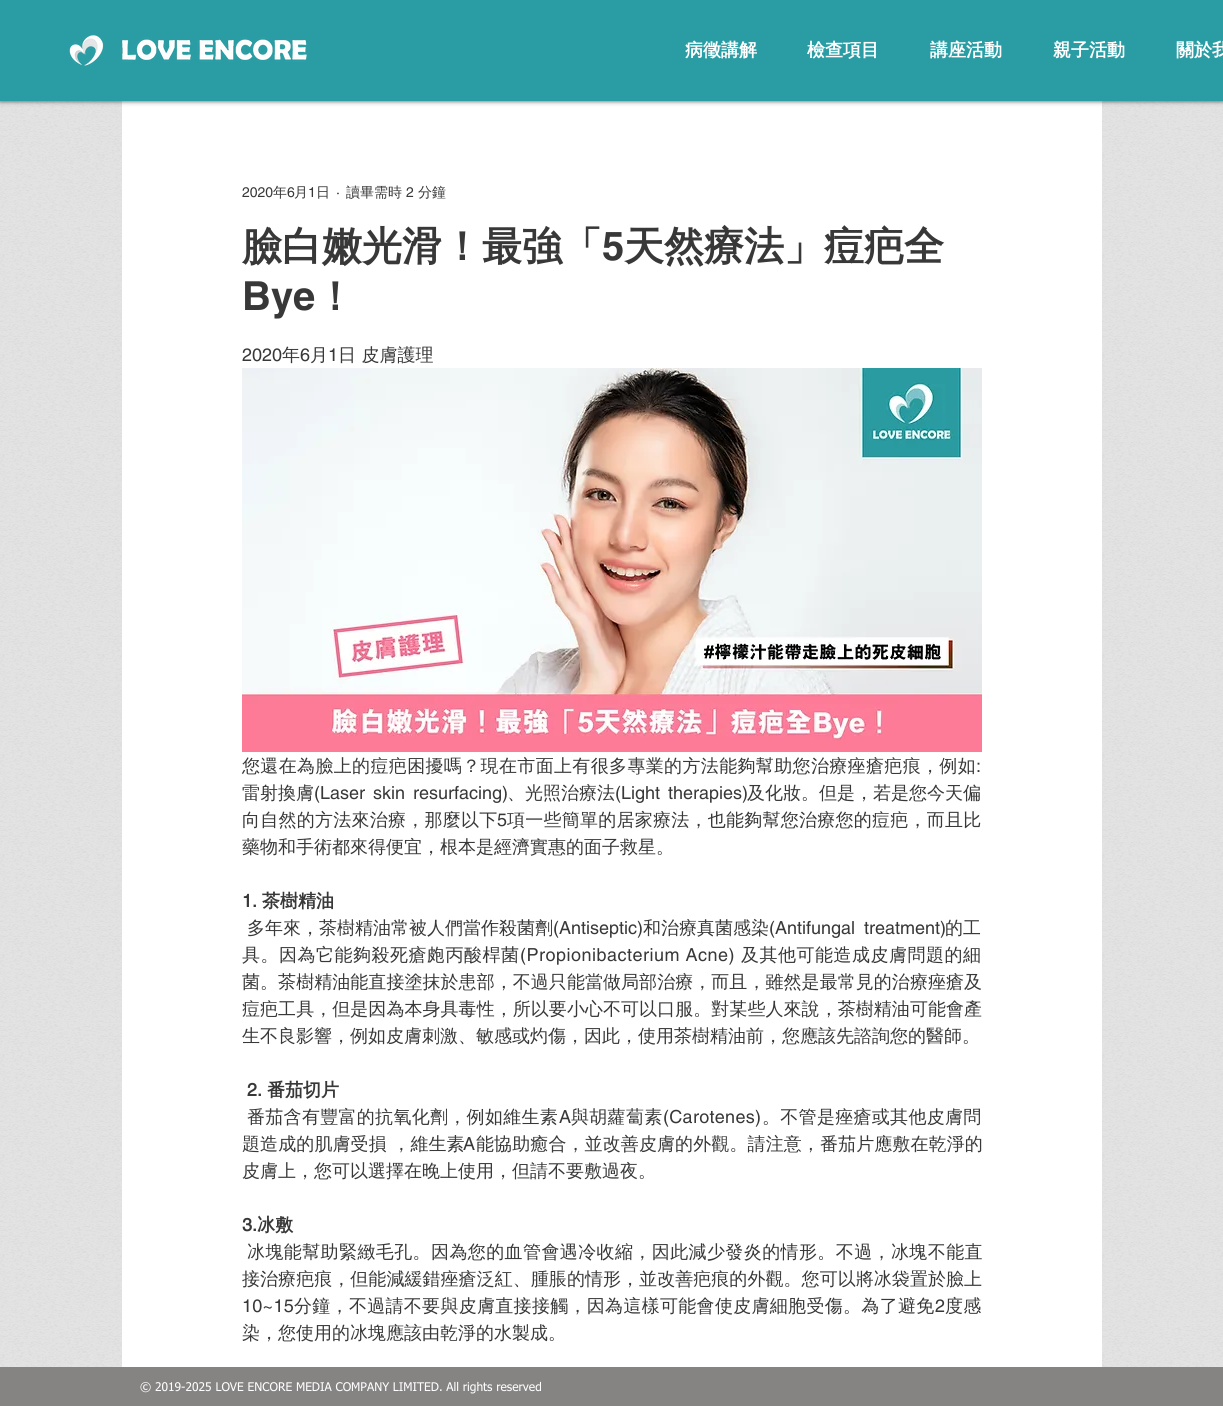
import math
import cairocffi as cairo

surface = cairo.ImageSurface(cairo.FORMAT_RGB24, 1223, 1406)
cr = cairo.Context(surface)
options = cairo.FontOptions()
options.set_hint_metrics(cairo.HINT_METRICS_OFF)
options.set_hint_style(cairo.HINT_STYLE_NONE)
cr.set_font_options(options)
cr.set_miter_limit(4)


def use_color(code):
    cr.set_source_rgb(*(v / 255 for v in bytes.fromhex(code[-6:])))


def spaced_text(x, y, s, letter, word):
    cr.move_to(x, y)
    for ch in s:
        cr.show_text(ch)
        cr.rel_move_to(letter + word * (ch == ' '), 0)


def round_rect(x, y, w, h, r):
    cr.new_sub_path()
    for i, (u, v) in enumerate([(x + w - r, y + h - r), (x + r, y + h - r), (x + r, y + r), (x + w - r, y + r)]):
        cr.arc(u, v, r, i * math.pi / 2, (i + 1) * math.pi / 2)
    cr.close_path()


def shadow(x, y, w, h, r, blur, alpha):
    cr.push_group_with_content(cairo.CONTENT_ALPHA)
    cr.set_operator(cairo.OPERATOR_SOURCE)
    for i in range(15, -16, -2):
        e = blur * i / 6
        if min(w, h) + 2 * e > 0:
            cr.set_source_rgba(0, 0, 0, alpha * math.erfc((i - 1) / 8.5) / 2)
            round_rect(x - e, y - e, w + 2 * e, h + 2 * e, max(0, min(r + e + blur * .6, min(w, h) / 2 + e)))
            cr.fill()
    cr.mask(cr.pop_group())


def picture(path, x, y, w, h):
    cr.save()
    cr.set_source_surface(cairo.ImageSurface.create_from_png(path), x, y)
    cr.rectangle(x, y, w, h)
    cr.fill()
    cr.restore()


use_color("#e3e3e3")
cr.paint()
picture("img3.png", 0, 101, 1223, 1266)
use_color("#ffffff")
cr.rectangle(122, 101, 980, 1266)
cr.fill()
use_color("#000000")
shadow(0, 0, 1223, 101, 0, 2.5, 0.7)
use_color("#2a9da4")
cr.rectangle(0, 0, 1223, 101)
cr.fill()
picture("img1.png", 69, 35, 238, 31)
cr.select_font_face("WenQuanYi Zen Hei", cairo.FONT_SLANT_NORMAL, cairo.FONT_WEIGHT_BOLD)
cr.set_font_size(18)
use_color("#ffffff")
cr.move_to(685, 56)
cr.show_text("病徵講解")
cr.move_to(807, 56)
cr.show_text("檢查項目")
cr.move_to(930, 56)
cr.show_text("講座活動")
cr.move_to(1053, 56)
cr.show_text("親子活動")
cr.move_to(1176, 56)
cr.show_text("關於我")
cr.select_font_face("helvetica")
cr.set_font_size(14)
use_color("#393838")
cr.move_to(242, 197)
cr.show_text("2020")
cr.select_font_face("WenQuanYi Zen Hei Medium")
cr.move_to(273, 197)
cr.show_text("年")
cr.select_font_face("helvetica")
cr.move_to(287, 197)
cr.show_text("6")
cr.select_font_face("WenQuanYi Zen Hei Medium")
cr.move_to(294, 197)
cr.show_text("月")
cr.select_font_face("helvetica")
cr.move_to(308, 197)
cr.show_text("1")
cr.select_font_face("WenQuanYi Zen Hei Medium")
cr.move_to(316, 197)
cr.show_text("日")
cr.select_font_face("helvetica")
cr.move_to(336, 197)
cr.show_text("·")
cr.select_font_face("WenQuanYi Zen Hei Medium")
cr.move_to(346, 197)
cr.show_text("讀畢需時")
cr.select_font_face("helvetica")
cr.move_to(406, 197)
cr.show_text("2")
cr.select_font_face("WenQuanYi Zen Hei Medium")
cr.move_to(418, 197)
cr.show_text("分鐘")
cr.select_font_face("WenQuanYi Zen Hei", cairo.FONT_SLANT_NORMAL, cairo.FONT_WEIGHT_BOLD)
cr.set_font_size(40)
cr.move_to(242, 260)
cr.show_text("臉白嫩光滑！最強「")
cr.select_font_face("helvetica", cairo.FONT_SLANT_NORMAL, cairo.FONT_WEIGHT_BOLD)
cr.move_to(602, 260)
cr.show_text("5")
cr.select_font_face("WenQuanYi Zen Hei", cairo.FONT_SLANT_NORMAL, cairo.FONT_WEIGHT_BOLD)
cr.move_to(624, 260)
cr.show_text("天然療法」痘疤全")
cr.select_font_face("helvetica", cairo.FONT_SLANT_NORMAL, cairo.FONT_WEIGHT_BOLD)
cr.move_to(242, 310)
cr.show_text("Bye")
cr.select_font_face("WenQuanYi Zen Hei", cairo.FONT_SLANT_NORMAL, cairo.FONT_WEIGHT_BOLD)
cr.move_to(315, 310)
cr.show_text("！")
cr.select_font_face("helvetica")
cr.set_font_size(18)
cr.move_to(242, 361)
cr.show_text("2020")
cr.select_font_face("WenQuanYi Zen Hei Medium")
cr.move_to(282, 361)
cr.show_text("年")
cr.select_font_face("helvetica")
cr.move_to(300, 361)
cr.show_text("6")
cr.select_font_face("WenQuanYi Zen Hei Medium")
cr.move_to(310, 361)
cr.show_text("月")
cr.select_font_face("helvetica")
cr.move_to(328, 361)
cr.show_text("1")
cr.select_font_face("WenQuanYi Zen Hei Medium")
cr.move_to(338, 361)
cr.show_text("日 皮膚護理")
picture("img2.png", 242, 368, 740, 384)
spaced_text(242, 772, "您還在為臉上的痘疤困擾嗎？現在市面上有很多專業的方法能夠幫助您治療痤瘡疤痕，例如", 0.35, 0)
cr.select_font_face("helvetica")
spaced_text(976, 772, ":", 0.35, 0)
cr.select_font_face("WenQuanYi Zen Hei Medium")
cr.move_to(242, 799)
cr.show_text("雷射換膚")
cr.select_font_face("helvetica")
spaced_text(314, 799, "(Laser skin resurfacing)", 0, 3)
cr.select_font_face("WenQuanYi Zen Hei Medium")
cr.move_to(507, 799)
cr.show_text("、光照治療法")
cr.select_font_face("helvetica")
spaced_text(615, 799, "(Light therapies)", 0, 3)
cr.select_font_face("WenQuanYi Zen Hei Medium")
cr.move_to(747, 799)
cr.show_text("及化妝。但是，若是您今天偏")
spaced_text(242, 826, "向自然的方法來治療，那麼以下", 0.25, 0)
cr.select_font_face("helvetica")
spaced_text(497, 826, "5", 0.25, 0)
cr.select_font_face("WenQuanYi Zen Hei Medium")
spaced_text(507, 826, "項一些簡單的居家療法，也能夠幫您治療您的痘疤，而且比", 0.25, 0)
cr.move_to(242, 853)
cr.show_text("藥物和手術都來得便宜，根本是經濟實惠的面子救星。")
cr.select_font_face("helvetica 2", cairo.FONT_SLANT_NORMAL, cairo.FONT_WEIGHT_BOLD)
cr.move_to(242, 907)
cr.show_text("1.")
cr.select_font_face("WenQuanYi Zen Hei", cairo.FONT_SLANT_NORMAL, cairo.FONT_WEIGHT_BOLD)
cr.move_to(262, 907)
cr.show_text("茶樹精油")
cr.select_font_face("WenQuanYi Zen Hei Medium")
cr.move_to(247, 934)
cr.show_text("多年來，茶樹精油常被人們當作殺菌劑")
cr.select_font_face("helvetica")
cr.move_to(553, 934)
cr.show_text("(Antiseptic)")
cr.select_font_face("WenQuanYi Zen Hei Medium")
cr.move_to(643, 934)
cr.show_text("和治療真菌感染")
cr.select_font_face("helvetica")
spaced_text(769, 934, "(Antifungal treatment)", 0, 4)
cr.select_font_face("WenQuanYi Zen Hei Medium")
cr.move_to(945, 934)
cr.show_text("的工")
spaced_text(242, 961, "具。因為它能夠殺死瘡皰丙酸桿菌", 0.5, 0)
cr.select_font_face("helvetica")
spaced_text(520, 961, "(Propionibacterium Acne)", 0.5, 0)
cr.select_font_face("WenQuanYi Zen Hei Medium")
spaced_text(741, 961, "及其他可能造成皮膚問題的細", 0.5, 0)
spaced_text(242, 988, "菌。茶樹精油能直接塗抹於患部，不過只能當做局部治療，而且，雖然是最常見的治療痤瘡及", 0.05, 0)
spaced_text(242, 1015, "痘疤工具，但是因為本身具毒性，所以要小心不可以口服。對某些人來說，茶樹精油可能會產", 0.05, 0)
cr.move_to(242, 1042)
cr.show_text("生不良影響，例如皮膚刺激、敏感或灼傷，因此，使用茶樹精油前，您應該先諮詢您的醫師。")
cr.select_font_face("helvetica 2", cairo.FONT_SLANT_NORMAL, cairo.FONT_WEIGHT_BOLD)
cr.move_to(247, 1096)
cr.show_text("2.")
cr.select_font_face("WenQuanYi Zen Hei", cairo.FONT_SLANT_NORMAL, cairo.FONT_WEIGHT_BOLD)
cr.move_to(267, 1096)
cr.show_text("番茄切片")
cr.select_font_face("WenQuanYi Zen Hei Medium")
spaced_text(247, 1123, "番茄含有豐富的抗氧化劑，例如維生素", 0.3, 0)
cr.select_font_face("helvetica")
spaced_text(559, 1123, "A", 0.3, 0)
cr.select_font_face("WenQuanYi Zen Hei Medium")
spaced_text(571, 1123, "與胡蘿蔔素", 0.3, 0)
cr.select_font_face("helvetica")
spaced_text(663, 1123, "(Carotenes)", 0.3, 0)
cr.select_font_face("WenQuanYi Zen Hei Medium")
spaced_text(762, 1123, "。不管是痤瘡或其他皮膚問", 0.3, 0)
spaced_text(242, 1150, "題造成的肌膚受損 ，維生素", 0.1, 0)
cr.select_font_face("helvetica")
spaced_text(463, 1150, "A", 0.1, 0)
cr.select_font_face("WenQuanYi Zen Hei Medium")
spaced_text(476, 1150, "能協助癒合，並改善皮膚的外觀。請注意，番茄片應敷在乾淨的", 0.1, 0)
cr.move_to(242, 1177)
cr.show_text("皮膚上，您可以選擇在晚上使用，但請不要敷過夜。")
cr.select_font_face("helvetica 2", cairo.FONT_SLANT_NORMAL, cairo.FONT_WEIGHT_BOLD)
cr.move_to(242, 1231)
cr.show_text("3.")
cr.select_font_face("WenQuanYi Zen Hei", cairo.FONT_SLANT_NORMAL, cairo.FONT_WEIGHT_BOLD)
cr.move_to(257, 1231)
cr.show_text("冰敷")
cr.select_font_face("WenQuanYi Zen Hei Medium")
spaced_text(247, 1258, "冰塊能幫助緊緻毛孔。因為您的血管會遇冷收縮，因此減少發炎的情形。不過，冰塊不能直", 0.4, 0)
spaced_text(242, 1285, "接治療疤痕，但能減緩錯痤瘡泛紅、腫脹的情形，並改善疤痕的外觀。您可以將冰袋置於臉上", 0.05, 0)
cr.select_font_face("helvetica")
spaced_text(242, 1312, "10~15", 0.3, 0)
cr.select_font_face("WenQuanYi Zen Hei Medium")
spaced_text(294, 1312, "分鐘，不過請不要與皮膚直接接觸，因為這樣可能會使皮膚細胞受傷。為了避免", 0.3, 0)
cr.select_font_face("helvetica")
spaced_text(935, 1312, "2", 0.3, 0)
cr.select_font_face("WenQuanYi Zen Hei Medium")
spaced_text(945, 1312, "度感", 0.3, 0)
cr.move_to(242, 1339)
cr.show_text("染，您使用的冰塊應該由乾淨的水製成。")
use_color("#868383")
cr.rectangle(0, 1367, 1223, 39)
cr.fill()
cr.select_font_face("tahoma")
cr.set_font_size(12)
use_color("#ffffff")
cr.move_to(140, 1391)
cr.show_text("© 2019-2025 LOVE ENCORE MEDIA COMPANY LIMITED. All rights reserved")
surface.write_to_png("result.png")
